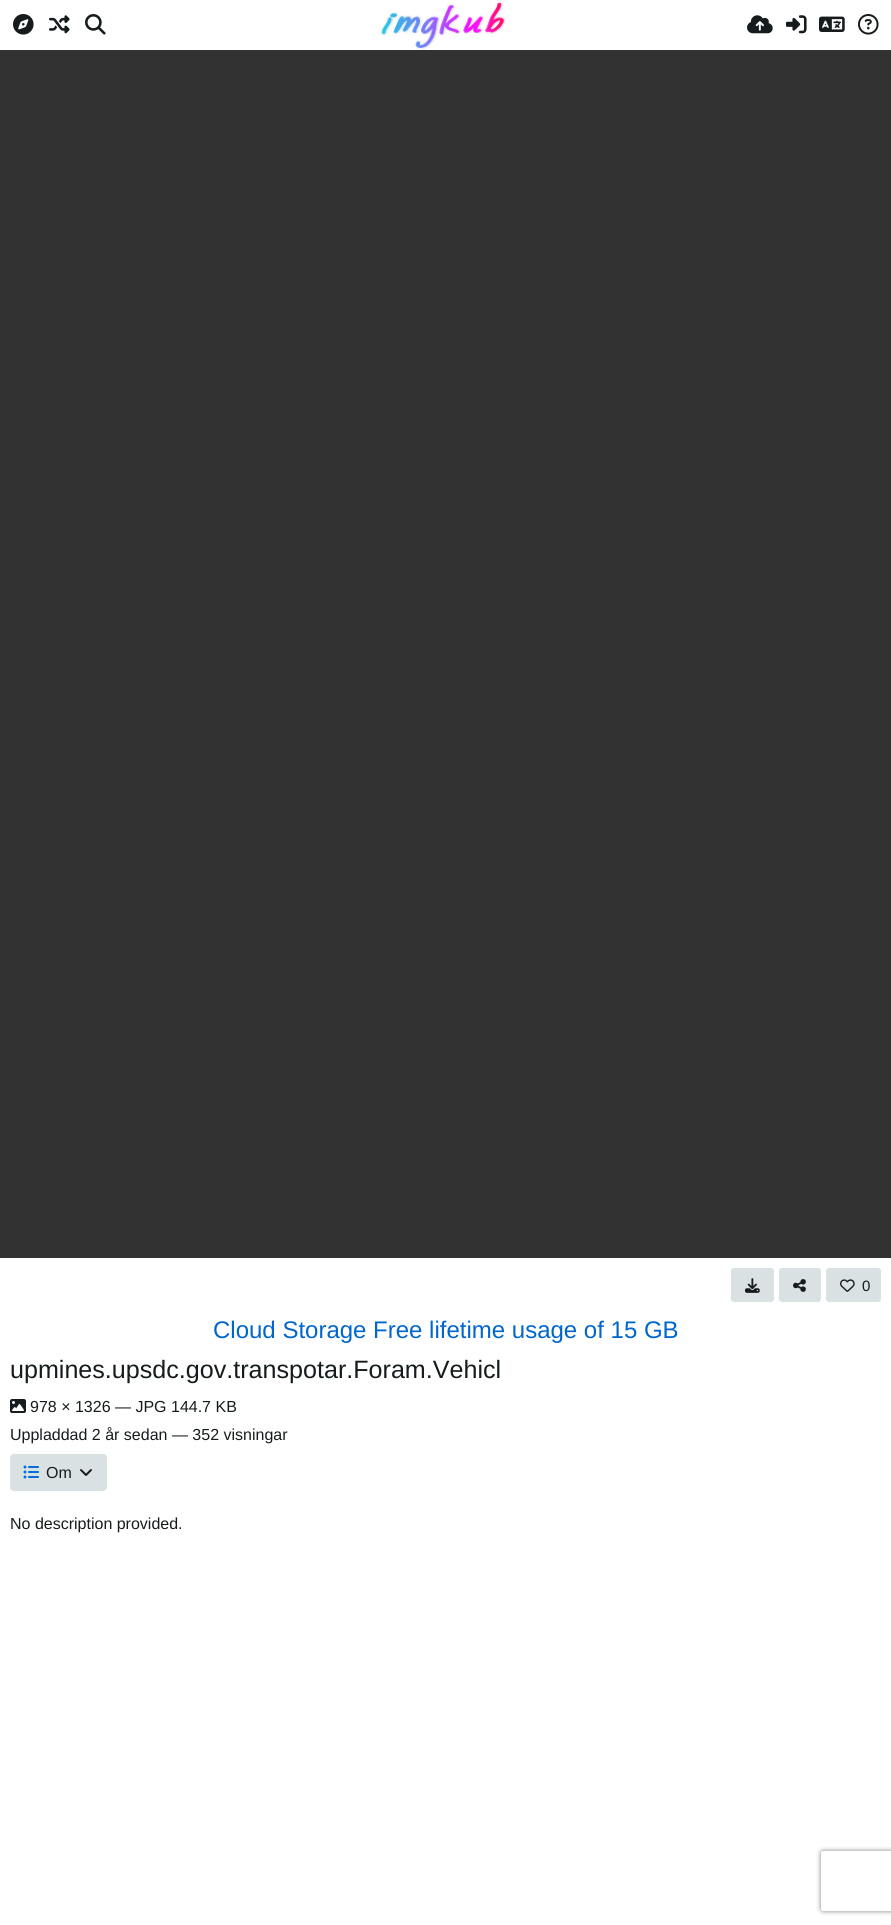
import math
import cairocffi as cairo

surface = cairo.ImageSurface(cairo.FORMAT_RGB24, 891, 1925)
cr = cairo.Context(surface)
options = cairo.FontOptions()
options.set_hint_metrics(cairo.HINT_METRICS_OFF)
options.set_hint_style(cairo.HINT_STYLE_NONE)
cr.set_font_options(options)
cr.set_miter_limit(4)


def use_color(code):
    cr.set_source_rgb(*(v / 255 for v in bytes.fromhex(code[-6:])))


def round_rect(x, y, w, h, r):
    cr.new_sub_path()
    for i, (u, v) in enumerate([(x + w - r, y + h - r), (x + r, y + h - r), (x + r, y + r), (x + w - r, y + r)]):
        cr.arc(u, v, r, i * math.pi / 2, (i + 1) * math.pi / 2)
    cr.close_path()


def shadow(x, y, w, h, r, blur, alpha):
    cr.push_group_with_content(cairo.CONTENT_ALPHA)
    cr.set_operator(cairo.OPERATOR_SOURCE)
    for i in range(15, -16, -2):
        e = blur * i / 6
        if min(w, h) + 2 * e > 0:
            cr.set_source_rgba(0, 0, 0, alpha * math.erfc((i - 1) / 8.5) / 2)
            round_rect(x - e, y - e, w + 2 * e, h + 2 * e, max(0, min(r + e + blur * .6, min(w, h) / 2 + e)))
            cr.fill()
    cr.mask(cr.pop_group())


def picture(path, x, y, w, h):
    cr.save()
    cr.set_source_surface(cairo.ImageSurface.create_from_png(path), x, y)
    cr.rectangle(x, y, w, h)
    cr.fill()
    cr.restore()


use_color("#ffffff")
cr.paint()
picture("img1.png", 13, 14, 21, 21)
picture("img2.png", 49, 15, 21, 19)
picture("img3.png", 85, 14, 21, 21)
picture("img4.png", 381, 1, 125, 49)
picture("img5.png", 747, 15, 26, 19)
picture("img6.png", 786, 15, 21, 19)
picture("img7.png", 819, 16, 26, 16)
picture("img8.png", 858, 14, 21, 21)
use_color("#323232")
cr.rectangle(0, 50, 891, 1208)
cr.fill()
use_color("#d9e1e2")
round_rect(731.5, 1268.5, 42, 33, 2.5)
cr.fill_preserve()
cr.set_line_width(1)
cr.stroke()
picture("img9.png", 745, 1278, 15, 15)
round_rect(779.5, 1268.5, 41, 33, 2.5)
cr.fill_preserve()
cr.stroke()
picture("img10.png", 793, 1279, 13, 13)
round_rect(826.5, 1268.5, 54, 33, 2.5)
cr.fill_preserve()
cr.stroke()
picture("img11.png", 840, 1279, 15, 13)
cr.select_font_face("Liberation Sans")
cr.set_font_size(15)
use_color("#161c1d")
cr.move_to(862, 1291)
cr.show_text("0")
cr.set_font_size(24)
use_color("#0066cc")
cr.move_to(213, 1338)
cr.show_text("Cloud Storage Free lifetime usage of 15 GB")
cr.set_font_size(25.1)
use_color("#161c1d")
cr.move_to(10, 1378)
cr.show_text("upmines.upsdc.gov.transpotar.Foram.Vehicl")
picture("img12.png", 10, 1399, 16, 14)
cr.set_font_size(16)
cr.move_to(30, 1412)
cr.show_text("978 × 1326 — JPG 144.7 KB")
cr.move_to(10, 1440)
cr.show_text("Uppladdad 2 år sedan — 352 visningar")
use_color("#d9e1e2")
round_rect(10, 1454, 97, 37, 4)
cr.fill()
picture("img13.png", 23, 1465, 16, 14)
use_color("#161c1d")
cr.move_to(46, 1478)
cr.show_text("Om")
picture("img14.png", 80, 1469, 12, 7)
cr.move_to(10, 1529)
cr.show_text("No description provided.")
cr.save()
cr.set_fill_rule(cairo.FILL_RULE_EVEN_ODD)
cr.new_path()
cr.move_to(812, 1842)
cr.line_to(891, 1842)
cr.line_to(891, 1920)
cr.line_to(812, 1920)
cr.close_path()
cr.move_to(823, 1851)
cr.line_to(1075, 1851)
cr.curve_to(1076, 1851, 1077, 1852, 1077, 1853)
cr.line_to(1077, 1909)
cr.curve_to(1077, 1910, 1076, 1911, 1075, 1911)
cr.line_to(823, 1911)
cr.curve_to(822, 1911, 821, 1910, 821, 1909)
cr.line_to(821, 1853)
cr.curve_to(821, 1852, 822, 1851, 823, 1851)
cr.close_path()
cr.clip()
use_color("#808080")
shadow(821, 1851, 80, 60, 2, 2.5, 1)
cr.restore()
surface.write_to_png("result.png")
